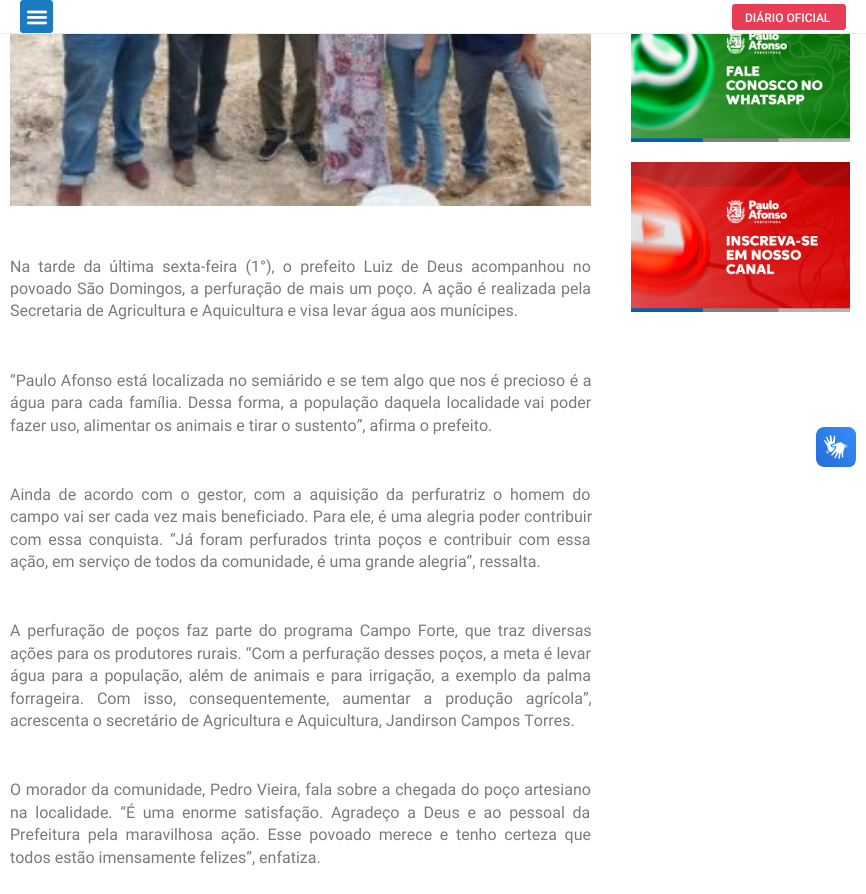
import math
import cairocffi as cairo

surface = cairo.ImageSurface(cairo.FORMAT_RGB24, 866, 894)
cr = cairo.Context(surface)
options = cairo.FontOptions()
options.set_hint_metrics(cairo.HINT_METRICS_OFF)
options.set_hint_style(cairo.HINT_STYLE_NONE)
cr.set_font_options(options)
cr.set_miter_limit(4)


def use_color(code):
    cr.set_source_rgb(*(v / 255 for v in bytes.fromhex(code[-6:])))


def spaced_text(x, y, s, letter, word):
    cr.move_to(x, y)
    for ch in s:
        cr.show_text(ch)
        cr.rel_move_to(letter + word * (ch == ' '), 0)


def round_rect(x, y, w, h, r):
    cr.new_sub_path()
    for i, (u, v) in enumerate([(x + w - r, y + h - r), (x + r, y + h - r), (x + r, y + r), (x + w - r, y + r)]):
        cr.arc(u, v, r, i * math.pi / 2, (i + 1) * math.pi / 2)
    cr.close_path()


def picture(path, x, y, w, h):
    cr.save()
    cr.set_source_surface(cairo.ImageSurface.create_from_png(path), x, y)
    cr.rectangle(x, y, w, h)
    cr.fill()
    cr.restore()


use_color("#ffffff")
cr.paint()
use_color("#ededed")
cr.rectangle(0, 33, 866, 1)
cr.fill()
use_color("#1a7bc0")
round_rect(20, 0, 33, 33, 3)
cr.fill()
picture("img1.png", 26, 10, 22, 15)
use_color("#e93c57")
round_rect(732, 4, 114, 26, 3)
cr.fill()
cr.select_font_face("Roboto Medium")
cr.set_font_size(12)
use_color("#ffffff")
cr.move_to(745, 22)
cr.show_text("DIÁRIO OFICIAL")
picture("img2.png", 631, 34, 219, 108)
picture("img3.png", 631, 162, 219, 150)
picture("img4.png", 10, 34, 581, 172)
cr.select_font_face("Roboto")
cr.set_font_size(16)
use_color("#7a7a7a")
spaced_text(10, 272, "Na tarde da última sexta-feira (1°), o prefeito Luiz de Deus acompanhou no", 0, 4.25)
spaced_text(10, 294, "povoado São Domingos, a perfuração de mais um poço. A ação é realizada pela", 0, 1.1)
cr.move_to(10, 316)
cr.show_text("Secretaria de Agricultura e Aquicultura e visa levar água aos munícipes.")
spaced_text(10, 386, "“Paulo Afonso está localizada no semiárido e se tem algo que nos é precioso é a", 0, 0.6)
spaced_text(10, 408, "água para cada família. Dessa forma, a população daquela localidade", 0, 1.75)
spaced_text(524, 408, "vai poder", 0, 1.75)
cr.move_to(10, 431)
cr.show_text("fazer uso, alimentar os animais e tirar o sustento”, afirma o prefeito.")
spaced_text(10, 500, "Ainda de acordo com o gestor, com a aquisição da perfuratriz o homem do", 0, 3.75)
spaced_text(10, 522, "campo vai ser cada vez mais beneficiado. Para ele, é uma alegria poder contribuir", 0, 0.25)
spaced_text(10, 545, "com essa conquista. “Já foram perfurados trinta poços e contribuir com essa", 0, 2.75)
cr.move_to(10, 567)
cr.show_text("ação, em serviço de todos da comunidade, é uma grande alegria”, ressalta.")
spaced_text(10, 636, "A perfuração de poços faz parte do programa Campo Forte, que traz diversas", 0, 2.75)
spaced_text(10, 659, "ações para os produtores rurais. “Com a perfuração desses poços, a meta é levar", 0, 0.25)
spaced_text(10, 681, "água para a população, além de animais e para irrigação, a exemplo da palma", 0, 2.25)
spaced_text(10, 704, "forrageira. Com isso, consequentemente, aumentar a produção agrícola”,", 0, 9)
cr.move_to(10, 726)
cr.show_text("acrescenta o secretário de Agricultura e Aquicultura, Jandirson Campos Torres.")
spaced_text(10, 795, "O morador da comunidade, Pedro Vieira, fala sobre a chegada do poço artesiano", 0, 0.75)
spaced_text(10, 818, "na localidade. “É uma enorme satisfação. Agradeço a Deus e ao pessoal da", 0, 3.75)
spaced_text(10, 840, "Prefeitura pela maravilhosa ação. Esse povoado merece e tenho certeza que", 0, 3.75)
cr.move_to(10, 863)
cr.show_text("todos estão imensamente felizes”, enfatiza.")
picture("img5.png", 816, 427, 40, 40)
picture("img6.png", 816, 427, 40, 40)
surface.write_to_png("result.png")
